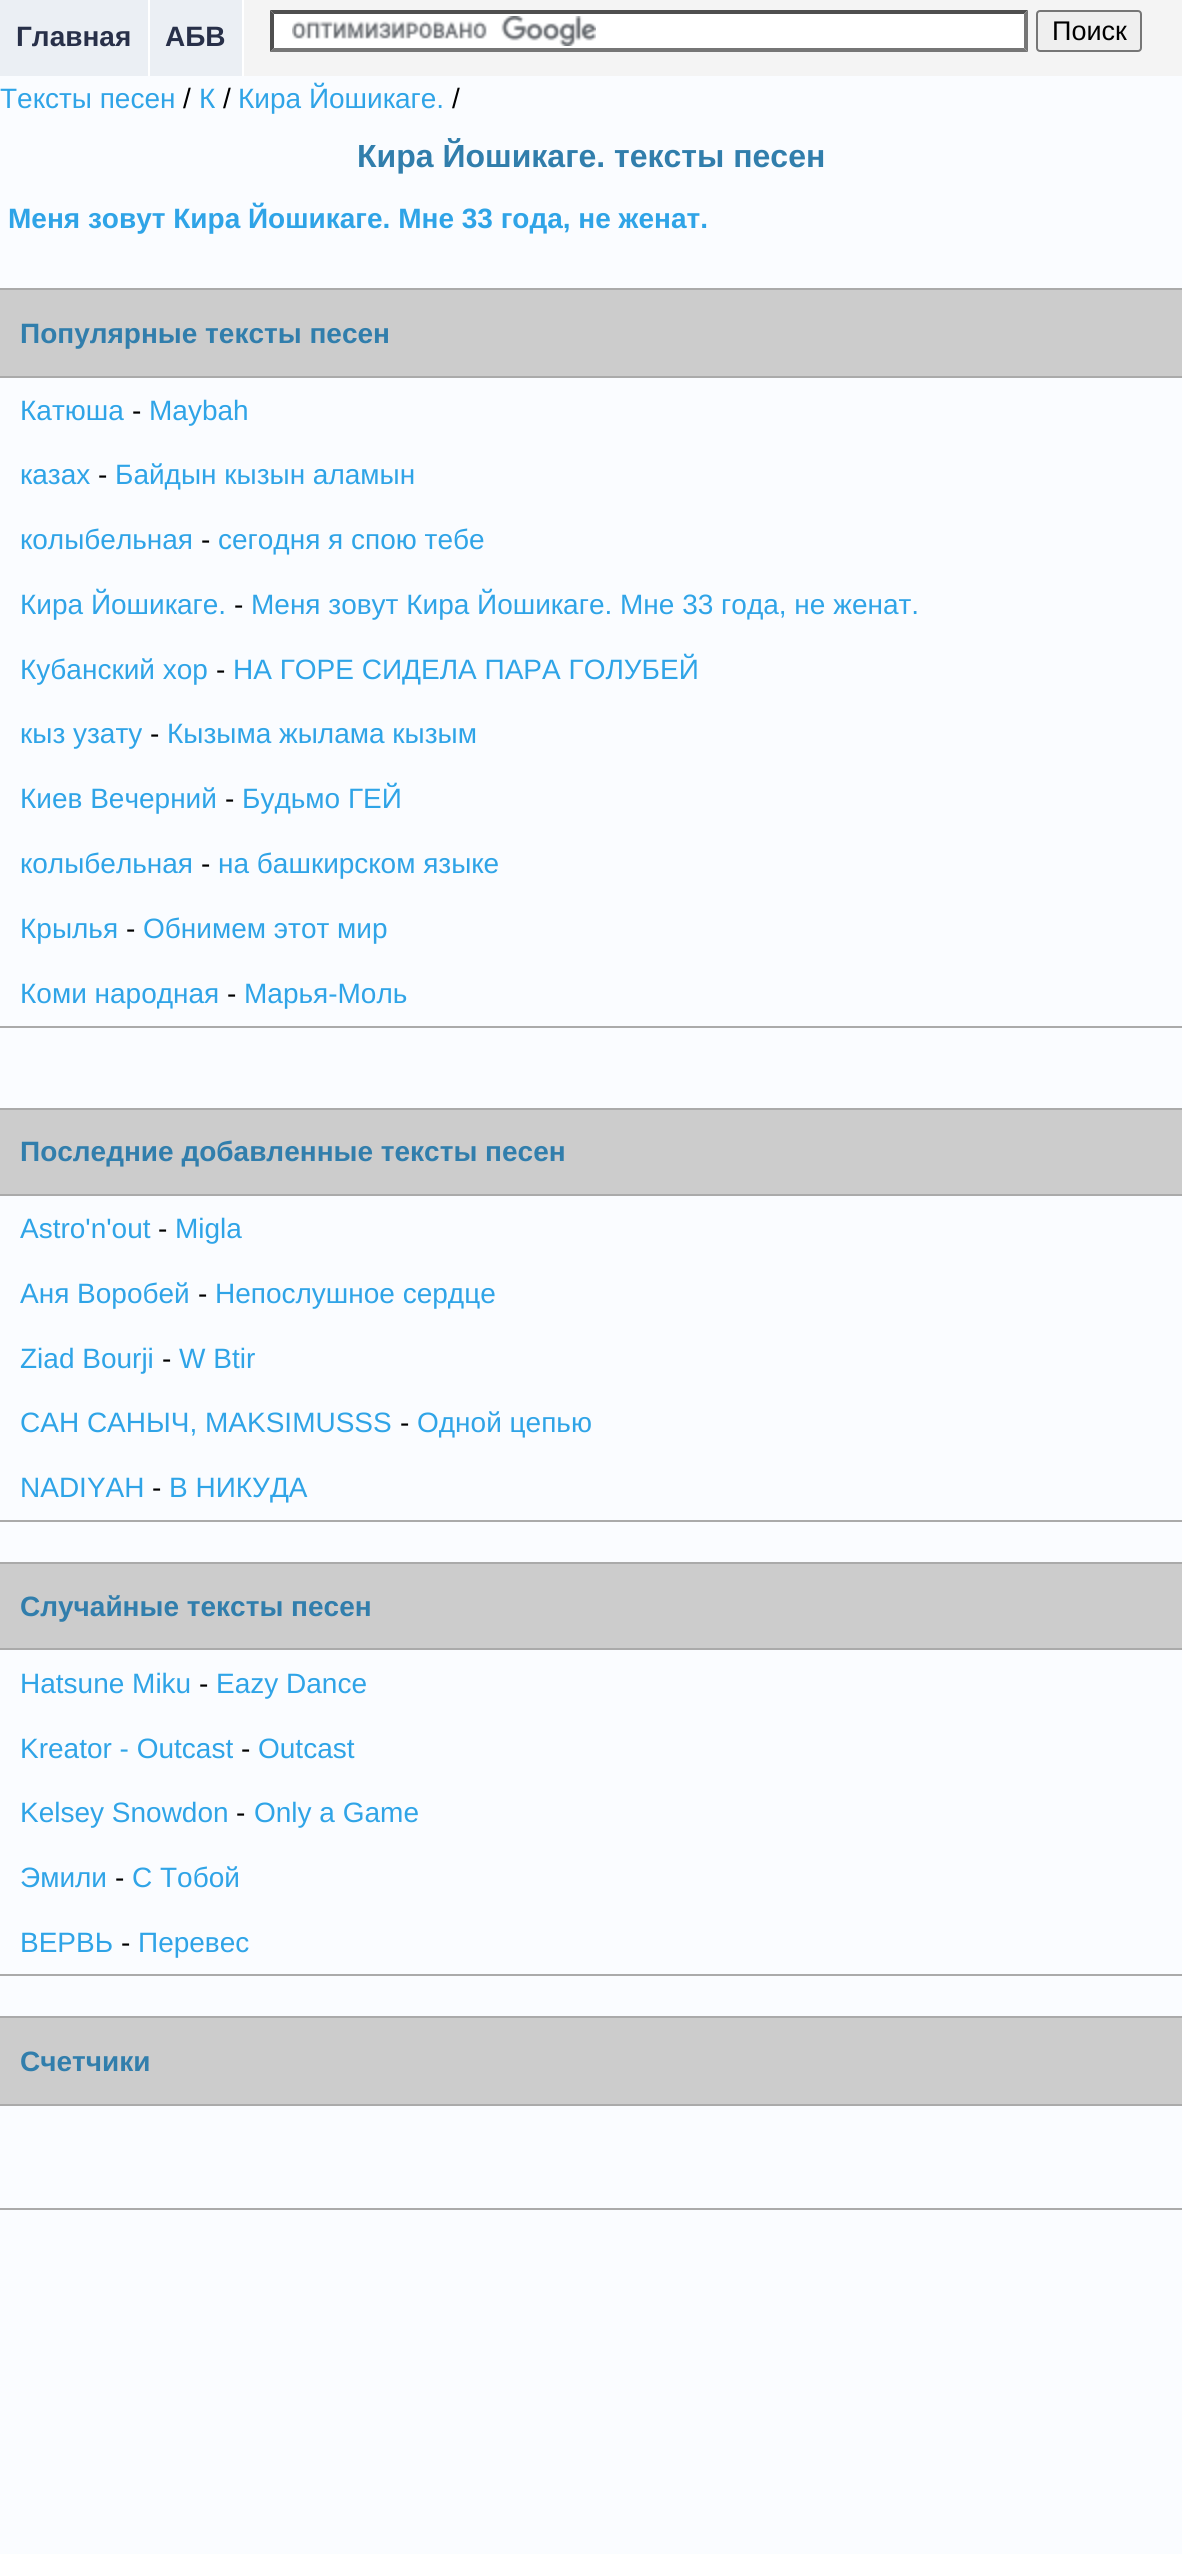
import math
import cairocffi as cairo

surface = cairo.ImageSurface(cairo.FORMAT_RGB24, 1182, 2554)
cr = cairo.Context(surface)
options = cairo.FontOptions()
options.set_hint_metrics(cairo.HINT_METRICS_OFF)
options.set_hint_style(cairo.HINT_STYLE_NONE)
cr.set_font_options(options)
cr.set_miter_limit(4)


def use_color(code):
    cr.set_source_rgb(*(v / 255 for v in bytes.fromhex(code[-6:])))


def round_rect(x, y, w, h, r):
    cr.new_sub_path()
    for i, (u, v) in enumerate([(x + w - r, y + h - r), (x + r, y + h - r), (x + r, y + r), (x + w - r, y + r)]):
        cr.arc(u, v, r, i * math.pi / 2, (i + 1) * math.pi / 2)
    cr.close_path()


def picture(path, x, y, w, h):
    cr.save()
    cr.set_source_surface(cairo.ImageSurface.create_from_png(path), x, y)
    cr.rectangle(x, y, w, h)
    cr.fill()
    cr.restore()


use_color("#fafcff")
cr.paint()
use_color("#f4f4f4")
cr.rectangle(244, 0, 938, 76)
cr.fill()
use_color("#ebeff4")
cr.rectangle(0, 0, 148, 76)
cr.fill()
use_color("#ffffff")
cr.rectangle(148, 0, 2, 76)
cr.fill()
cr.select_font_face("Liberation Sans", cairo.FONT_SLANT_NORMAL, cairo.FONT_WEIGHT_BOLD)
cr.set_font_size(28)
use_color("#283049")
cr.move_to(16, 46)
cr.show_text("Главная")
use_color("#ebeff4")
cr.rectangle(150, 0, 92, 76)
cr.fill()
use_color("#ffffff")
cr.rectangle(242, 0, 2, 76)
cr.fill()
use_color("#283049")
cr.move_to(165, 46)
cr.show_text("АБВ")
use_color("#ffffff")
cr.rectangle(270, 10, 758, 42)
cr.fill()
picture("img1.png", 292, 16, 304, 30)
use_color("#4f4f4f")
cr.new_path()
cr.move_to(270, 10)
cr.line_to(1028, 10)
cr.line_to(1024, 14)
cr.line_to(274, 14)
cr.close_path()
cr.fill()
use_color("#767676")
cr.new_path()
cr.move_to(1028, 10)
cr.line_to(1028, 52)
cr.line_to(1024, 48)
cr.line_to(1024, 14)
cr.close_path()
cr.fill()
cr.new_path()
cr.move_to(1028, 52)
cr.line_to(270, 52)
cr.line_to(274, 48)
cr.line_to(1024, 48)
cr.close_path()
cr.fill()
use_color("#4f4f4f")
cr.new_path()
cr.move_to(270, 52)
cr.line_to(270, 10)
cr.line_to(274, 14)
cr.line_to(274, 48)
cr.close_path()
cr.fill()
use_color("#efefef")
round_rect(1037, 11, 104, 40, 3)
cr.fill_preserve()
use_color("#767676")
cr.stroke()
cr.select_font_face("Liberation Sans")
cr.set_font_size(27)
use_color("#000000")
cr.move_to(1052, 40)
cr.show_text("Поиск")
cr.set_font_size(28)
use_color("#2fa4e7")
cr.move_to(0, 108)
cr.show_text("Тексты песен")
use_color("#000000")
cr.move_to(183, 108)
cr.show_text("/")
use_color("#2fa4e7")
cr.move_to(199, 108)
cr.show_text("К")
use_color("#000000")
cr.move_to(223, 108)
cr.show_text("/")
use_color("#2fa4e7")
cr.move_to(238, 108)
cr.show_text("Кира Йошикаге.")
use_color("#000000")
cr.move_to(452, 108)
cr.show_text("/")
cr.select_font_face("Liberation Sans", cairo.FONT_SLANT_NORMAL, cairo.FONT_WEIGHT_BOLD)
cr.set_font_size(32)
use_color("#317eac")
cr.move_to(357, 167)
cr.show_text("Кира Йошикаге. тексты песен")
cr.set_font_size(28)
use_color("#2fa4e7")
cr.move_to(8, 228)
cr.show_text("Меня зовут Кира Йошикаге. Мне 33 года, не женат.")
use_color("#aaaaaa")
cr.rectangle(0, 288, 1182, 2)
cr.fill()
cr.rectangle(0, 1026, 1182, 2)
cr.fill()
use_color("#cccccc")
cr.rectangle(0, 290, 1182, 86)
cr.fill()
use_color("#aaaaaa")
cr.rectangle(0, 376, 1182, 2)
cr.fill()
use_color("#317eac")
cr.move_to(20, 343)
cr.show_text("Популярные тексты песен")
cr.select_font_face("Liberation Sans")
use_color("#2fa4e7")
cr.move_to(20, 420)
cr.show_text("Катюша")
use_color("#000000")
cr.move_to(132, 420)
cr.show_text("-")
use_color("#2fa4e7")
cr.move_to(149, 420)
cr.show_text("Maybah")
cr.move_to(20, 484)
cr.show_text("казах")
use_color("#000000")
cr.move_to(98, 484)
cr.show_text("-")
use_color("#2fa4e7")
cr.move_to(115, 484)
cr.show_text("Байдын кызын аламын")
cr.move_to(20, 549)
cr.show_text("колыбельная")
use_color("#000000")
cr.move_to(201, 549)
cr.show_text("-")
use_color("#2fa4e7")
cr.move_to(218, 549)
cr.show_text("сегодня я спою тебе")
cr.move_to(20, 614)
cr.show_text("Кира Йошикаге.")
use_color("#000000")
cr.move_to(234, 614)
cr.show_text("-")
use_color("#2fa4e7")
cr.move_to(251, 614)
cr.show_text("Меня зовут Кира Йошикаге. Мне 33 года, не женат.")
cr.move_to(20, 679)
cr.show_text("Кубанский хор")
use_color("#000000")
cr.move_to(216, 679)
cr.show_text("-")
use_color("#2fa4e7")
cr.move_to(233, 679)
cr.show_text("НА ГОРЕ СИДЕЛА ПАРА ГОЛУБЕЙ")
cr.move_to(20, 743)
cr.show_text("кыз узату")
use_color("#000000")
cr.move_to(150, 743)
cr.show_text("-")
use_color("#2fa4e7")
cr.move_to(167, 743)
cr.show_text("Кызыма жылама кызым")
cr.move_to(20, 808)
cr.show_text("Киев Вечерний")
use_color("#000000")
cr.move_to(225, 808)
cr.show_text("-")
use_color("#2fa4e7")
cr.move_to(242, 808)
cr.show_text("Будьмо ГЕЙ")
cr.move_to(20, 873)
cr.show_text("колыбельная")
use_color("#000000")
cr.move_to(201, 873)
cr.show_text("-")
use_color("#2fa4e7")
cr.move_to(218, 873)
cr.show_text("на башкирском языке")
cr.move_to(20, 938)
cr.show_text("Крылья")
use_color("#000000")
cr.move_to(126, 938)
cr.show_text("-")
use_color("#2fa4e7")
cr.move_to(143, 938)
cr.show_text("Обнимем этот мир")
cr.move_to(20, 1003)
cr.show_text("Коми народная")
use_color("#000000")
cr.move_to(227, 1003)
cr.show_text("-")
use_color("#2fa4e7")
cr.move_to(244, 1003)
cr.show_text("Марья-Моль")
use_color("#aaaaaa")
cr.rectangle(0, 1108, 1182, 2)
cr.fill()
cr.rectangle(0, 1520, 1182, 2)
cr.fill()
use_color("#cccccc")
cr.rectangle(0, 1110, 1182, 84)
cr.fill()
use_color("#aaaaaa")
cr.rectangle(0, 1194, 1182, 2)
cr.fill()
cr.select_font_face("Liberation Sans", cairo.FONT_SLANT_NORMAL, cairo.FONT_WEIGHT_BOLD)
use_color("#317eac")
cr.move_to(20, 1161)
cr.show_text("Последние добавленные тексты песен")
cr.select_font_face("Liberation Sans")
use_color("#2fa4e7")
cr.move_to(20, 1238)
cr.show_text("Astro'n'out")
use_color("#000000")
cr.move_to(158, 1238)
cr.show_text("-")
use_color("#2fa4e7")
cr.move_to(175, 1238)
cr.show_text("Migla")
cr.move_to(20, 1303)
cr.show_text("Аня Воробей")
use_color("#000000")
cr.move_to(198, 1303)
cr.show_text("-")
use_color("#2fa4e7")
cr.move_to(215, 1303)
cr.show_text("Непослушное сердце")
cr.move_to(20, 1368)
cr.show_text("Ziad Bourji")
use_color("#000000")
cr.move_to(162, 1368)
cr.show_text("-")
use_color("#2fa4e7")
cr.move_to(179, 1368)
cr.show_text("W Btir")
cr.move_to(20, 1432)
cr.show_text("САН САНЫЧ, MAKSIMUSSS")
use_color("#000000")
cr.move_to(400, 1432)
cr.show_text("-")
use_color("#2fa4e7")
cr.move_to(417, 1432)
cr.show_text("Одной цепью")
cr.move_to(20, 1497)
cr.show_text("NADIYAH")
use_color("#000000")
cr.move_to(152, 1497)
cr.show_text("-")
use_color("#2fa4e7")
cr.move_to(169, 1497)
cr.show_text("В НИКУДА")
use_color("#aaaaaa")
cr.rectangle(0, 1562, 1182, 2)
cr.fill()
cr.rectangle(0, 1974, 1182, 2)
cr.fill()
use_color("#cccccc")
cr.rectangle(0, 1564, 1182, 84)
cr.fill()
use_color("#aaaaaa")
cr.rectangle(0, 1648, 1182, 2)
cr.fill()
cr.select_font_face("Liberation Sans", cairo.FONT_SLANT_NORMAL, cairo.FONT_WEIGHT_BOLD)
use_color("#317eac")
cr.move_to(20, 1616)
cr.show_text("Случайные тексты песен")
cr.select_font_face("Liberation Sans")
use_color("#2fa4e7")
cr.move_to(20, 1693)
cr.show_text("Hatsune Miku")
use_color("#000000")
cr.move_to(199, 1693)
cr.show_text("-")
use_color("#2fa4e7")
cr.move_to(216, 1693)
cr.show_text("Eazy Dance")
cr.move_to(20, 1758)
cr.show_text("Kreator - Outcast")
use_color("#000000")
cr.move_to(241, 1758)
cr.show_text("-")
use_color("#2fa4e7")
cr.move_to(258, 1758)
cr.show_text("Outcast")
cr.move_to(20, 1822)
cr.show_text("Kelsey Snowdon")
use_color("#000000")
cr.move_to(236, 1822)
cr.show_text("-")
use_color("#2fa4e7")
cr.move_to(254, 1822)
cr.show_text("Only a Game")
cr.move_to(20, 1887)
cr.show_text("Эмили")
use_color("#000000")
cr.move_to(115, 1887)
cr.show_text("-")
use_color("#2fa4e7")
cr.move_to(132, 1887)
cr.show_text("С Тобой")
cr.move_to(20, 1952)
cr.show_text("ВЕРВЬ")
use_color("#000000")
cr.move_to(121, 1952)
cr.show_text("-")
use_color("#2fa4e7")
cr.move_to(138, 1952)
cr.show_text("Перевес")
use_color("#aaaaaa")
cr.rectangle(0, 2016, 1182, 2)
cr.fill()
cr.rectangle(0, 2208, 1182, 2)
cr.fill()
use_color("#cccccc")
cr.rectangle(0, 2018, 1182, 86)
cr.fill()
use_color("#aaaaaa")
cr.rectangle(0, 2104, 1182, 2)
cr.fill()
cr.select_font_face("Liberation Sans", cairo.FONT_SLANT_NORMAL, cairo.FONT_WEIGHT_BOLD)
use_color("#317eac")
cr.move_to(20, 2071)
cr.show_text("Счетчики")
surface.write_to_png("result.png")
